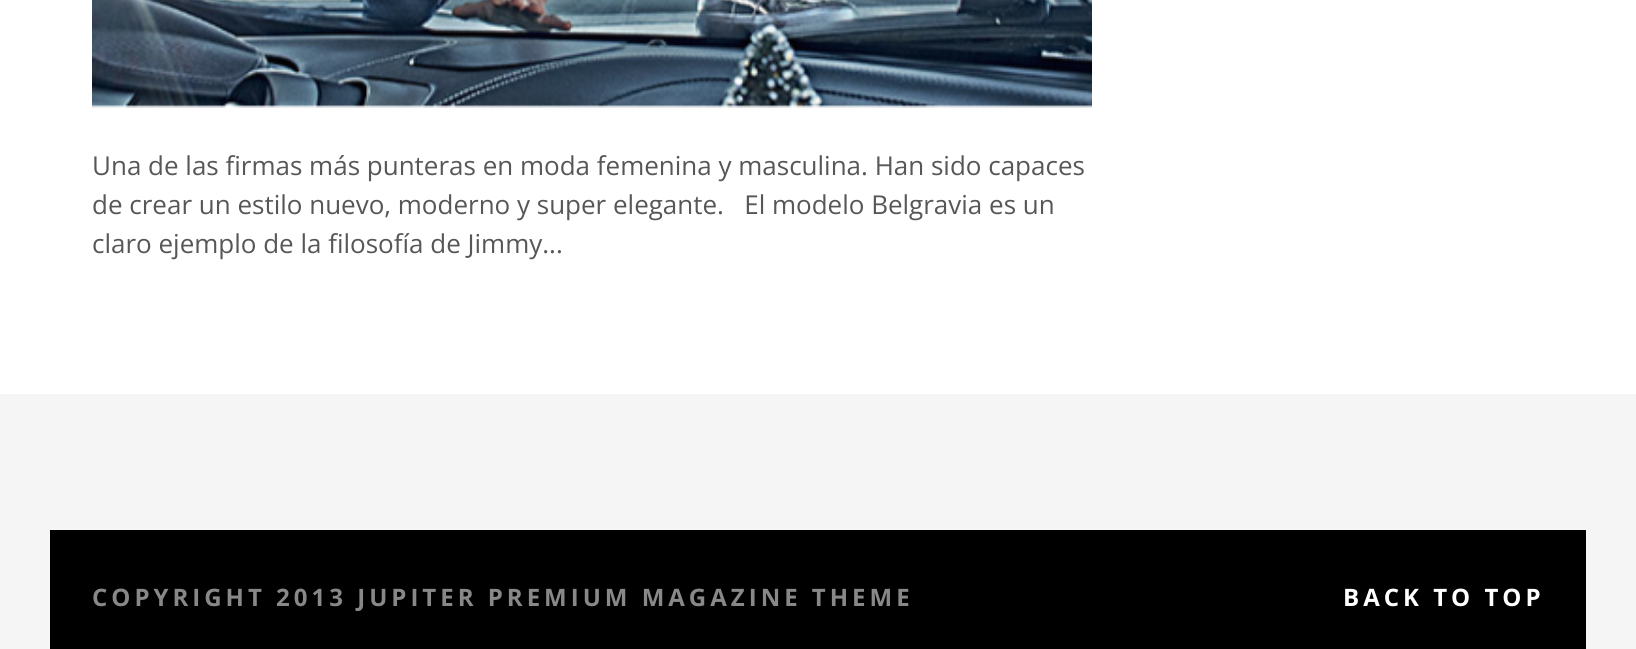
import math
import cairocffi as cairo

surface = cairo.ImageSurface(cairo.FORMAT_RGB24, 1636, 649)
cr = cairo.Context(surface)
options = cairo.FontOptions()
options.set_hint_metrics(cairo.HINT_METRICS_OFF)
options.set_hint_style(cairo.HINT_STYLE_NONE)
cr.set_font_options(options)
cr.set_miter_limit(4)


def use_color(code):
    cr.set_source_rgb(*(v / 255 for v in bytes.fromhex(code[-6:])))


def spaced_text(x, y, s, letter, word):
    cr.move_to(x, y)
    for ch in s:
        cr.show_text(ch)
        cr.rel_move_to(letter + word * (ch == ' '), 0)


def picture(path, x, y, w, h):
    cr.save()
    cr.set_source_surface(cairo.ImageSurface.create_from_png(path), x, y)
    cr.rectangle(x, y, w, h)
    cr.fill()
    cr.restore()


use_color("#f5f5f5")
cr.paint()
use_color("#ffffff")
cr.rectangle(0, 0, 1636, 394)
cr.fill()
picture("img1.png", 92, 0, 1000, 108)
cr.select_font_face("Open Sans")
cr.set_font_size(26)
use_color("#575757")
cr.move_to(92, 175)
cr.show_text("Una de las firmas más punteras en moda femenina y masculina. Han sido capaces")
cr.move_to(92, 214)
cr.show_text("de crear un estilo nuevo, moderno y super elegante.   El modelo Belgravia es un")
cr.move_to(92, 253)
cr.show_text("claro ejemplo de la filosofía de Jimmy...")
use_color("#000000")
cr.rectangle(50, 530, 1536, 119)
cr.fill()
cr.select_font_face("Open Sans", cairo.FONT_SLANT_NORMAL, cairo.FONT_WEIGHT_BOLD)
cr.set_font_size(24)
use_color("#888888")
spaced_text(92, 606, "COPYRIGHT 2013 JUPITER PREMIUM MAGAZINE THEME", 4, 0)
use_color("#ffffff")
spaced_text(1343, 606, "BACK TO TOP", 4, 0)
surface.write_to_png("result.png")
